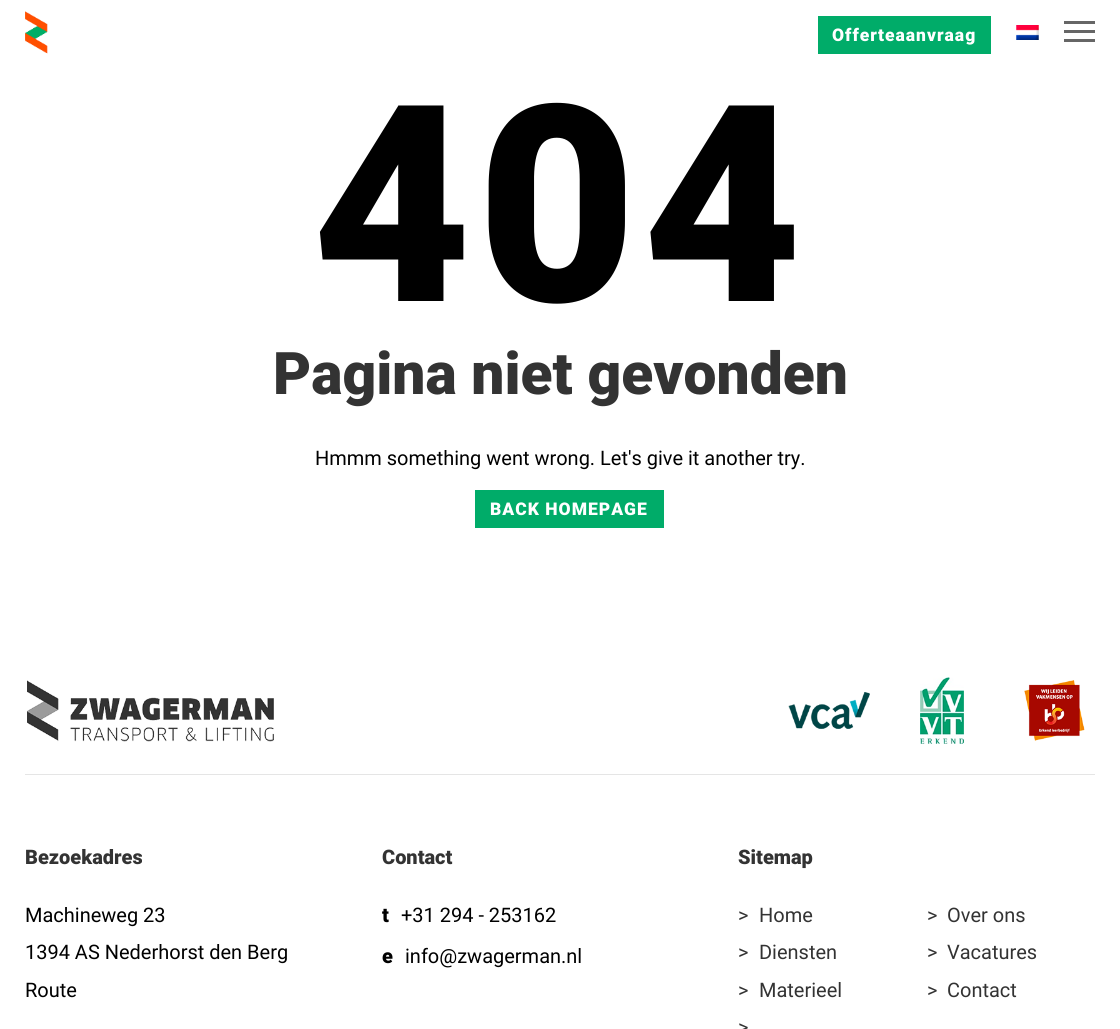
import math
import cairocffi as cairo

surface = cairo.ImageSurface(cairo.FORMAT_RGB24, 1120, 1029)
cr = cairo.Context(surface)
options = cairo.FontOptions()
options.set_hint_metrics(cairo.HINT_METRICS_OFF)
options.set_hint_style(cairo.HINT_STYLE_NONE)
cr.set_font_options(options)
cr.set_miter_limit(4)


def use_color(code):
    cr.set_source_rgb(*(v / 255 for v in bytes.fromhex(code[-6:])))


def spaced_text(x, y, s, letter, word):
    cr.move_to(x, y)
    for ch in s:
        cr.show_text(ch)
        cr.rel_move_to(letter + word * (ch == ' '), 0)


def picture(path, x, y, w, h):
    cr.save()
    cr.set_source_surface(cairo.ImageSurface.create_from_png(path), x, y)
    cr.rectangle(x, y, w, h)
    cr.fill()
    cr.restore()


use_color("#ffffff")
cr.paint()
picture("img1.png", 25, 11, 23, 43)
use_color("#666666")
cr.rectangle(1064, 21, 31, 3)
cr.fill()
cr.rectangle(1064, 30, 31, 3)
cr.fill()
cr.rectangle(1064, 39, 31, 3)
cr.fill()
use_color("#00ac69")
cr.rectangle(818, 16, 173, 38)
cr.fill()
cr.select_font_face("Roboto Black")
cr.set_font_size(17.5)
use_color("#ffffff")
spaced_text(832, 41, "Offerteaanvraag", 1, 0)
picture("img2.png", 1016, 25, 23, 15)
cr.set_font_size(275)
use_color("#000000")
spaced_text(312, 301, "404", 6, 0)
cr.set_font_size(58.75)
use_color("#333333")
cr.move_to(273, 394)
cr.show_text("Pagina niet gevonden")
cr.select_font_face("Roboto")
cr.set_font_size(20)
use_color("#000000")
cr.move_to(315, 465)
cr.show_text("Hmmm something went wrong. Let's give it another try.")
use_color("#00ac69")
cr.rectangle(475, 490, 189, 38)
cr.fill()
cr.select_font_face("Roboto Black")
cr.set_font_size(17.5)
use_color("#ffffff")
spaced_text(490, 515, "BACK HOMEPAGE", 1, 0)
use_color("#e5e5e5")
cr.rectangle(25, 774, 1070, 1)
cr.fill()
picture("img3.png", 27, 680, 247, 62)
picture("img4.png", 788, 692, 82, 37)
picture("img5.png", 920, 677, 44, 67)
picture("img6.png", 1024, 680, 61, 61)
cr.set_font_size(20)
use_color("#333333")
cr.move_to(25, 864)
cr.show_text("Bezoekadres")
cr.select_font_face("Roboto")
use_color("#000000")
cr.move_to(25, 922)
cr.show_text("Machineweg 23")
cr.move_to(25, 959)
cr.show_text("1394 AS Nederhorst den Berg")
cr.move_to(25, 997)
cr.show_text("Route")
cr.select_font_face("Roboto Black")
use_color("#333333")
cr.move_to(382, 864)
cr.show_text("Contact")
use_color("#000000")
cr.move_to(382, 922)
cr.show_text("t")
cr.select_font_face("Roboto")
cr.move_to(401, 922)
cr.show_text("+31 294 - 253162")
cr.select_font_face("Roboto Black")
cr.move_to(382, 963)
cr.show_text("e")
cr.select_font_face("Roboto")
cr.move_to(405, 963)
cr.show_text("info@zwagerman.nl")
cr.select_font_face("Roboto Black")
use_color("#333333")
cr.move_to(738, 864)
cr.show_text("Sitemap")
cr.select_font_face("Roboto")
cr.move_to(738, 922)
cr.show_text(">")
cr.move_to(759, 922)
cr.show_text("Home")
cr.move_to(927, 922)
cr.show_text(">")
cr.move_to(947, 922)
cr.show_text("Over ons")
cr.move_to(738, 959)
cr.show_text(">")
cr.move_to(759, 959)
cr.show_text("Diensten")
cr.move_to(927, 959)
cr.show_text(">")
cr.move_to(947, 959)
cr.show_text("Vacatures")
cr.move_to(738, 997)
cr.show_text(">")
cr.move_to(759, 997)
cr.show_text("Materieel")
cr.move_to(927, 997)
cr.show_text(">")
cr.move_to(947, 997)
cr.show_text("Contact")
cr.move_to(738, 1034)
cr.show_text(">")
surface.write_to_png("result.png")
